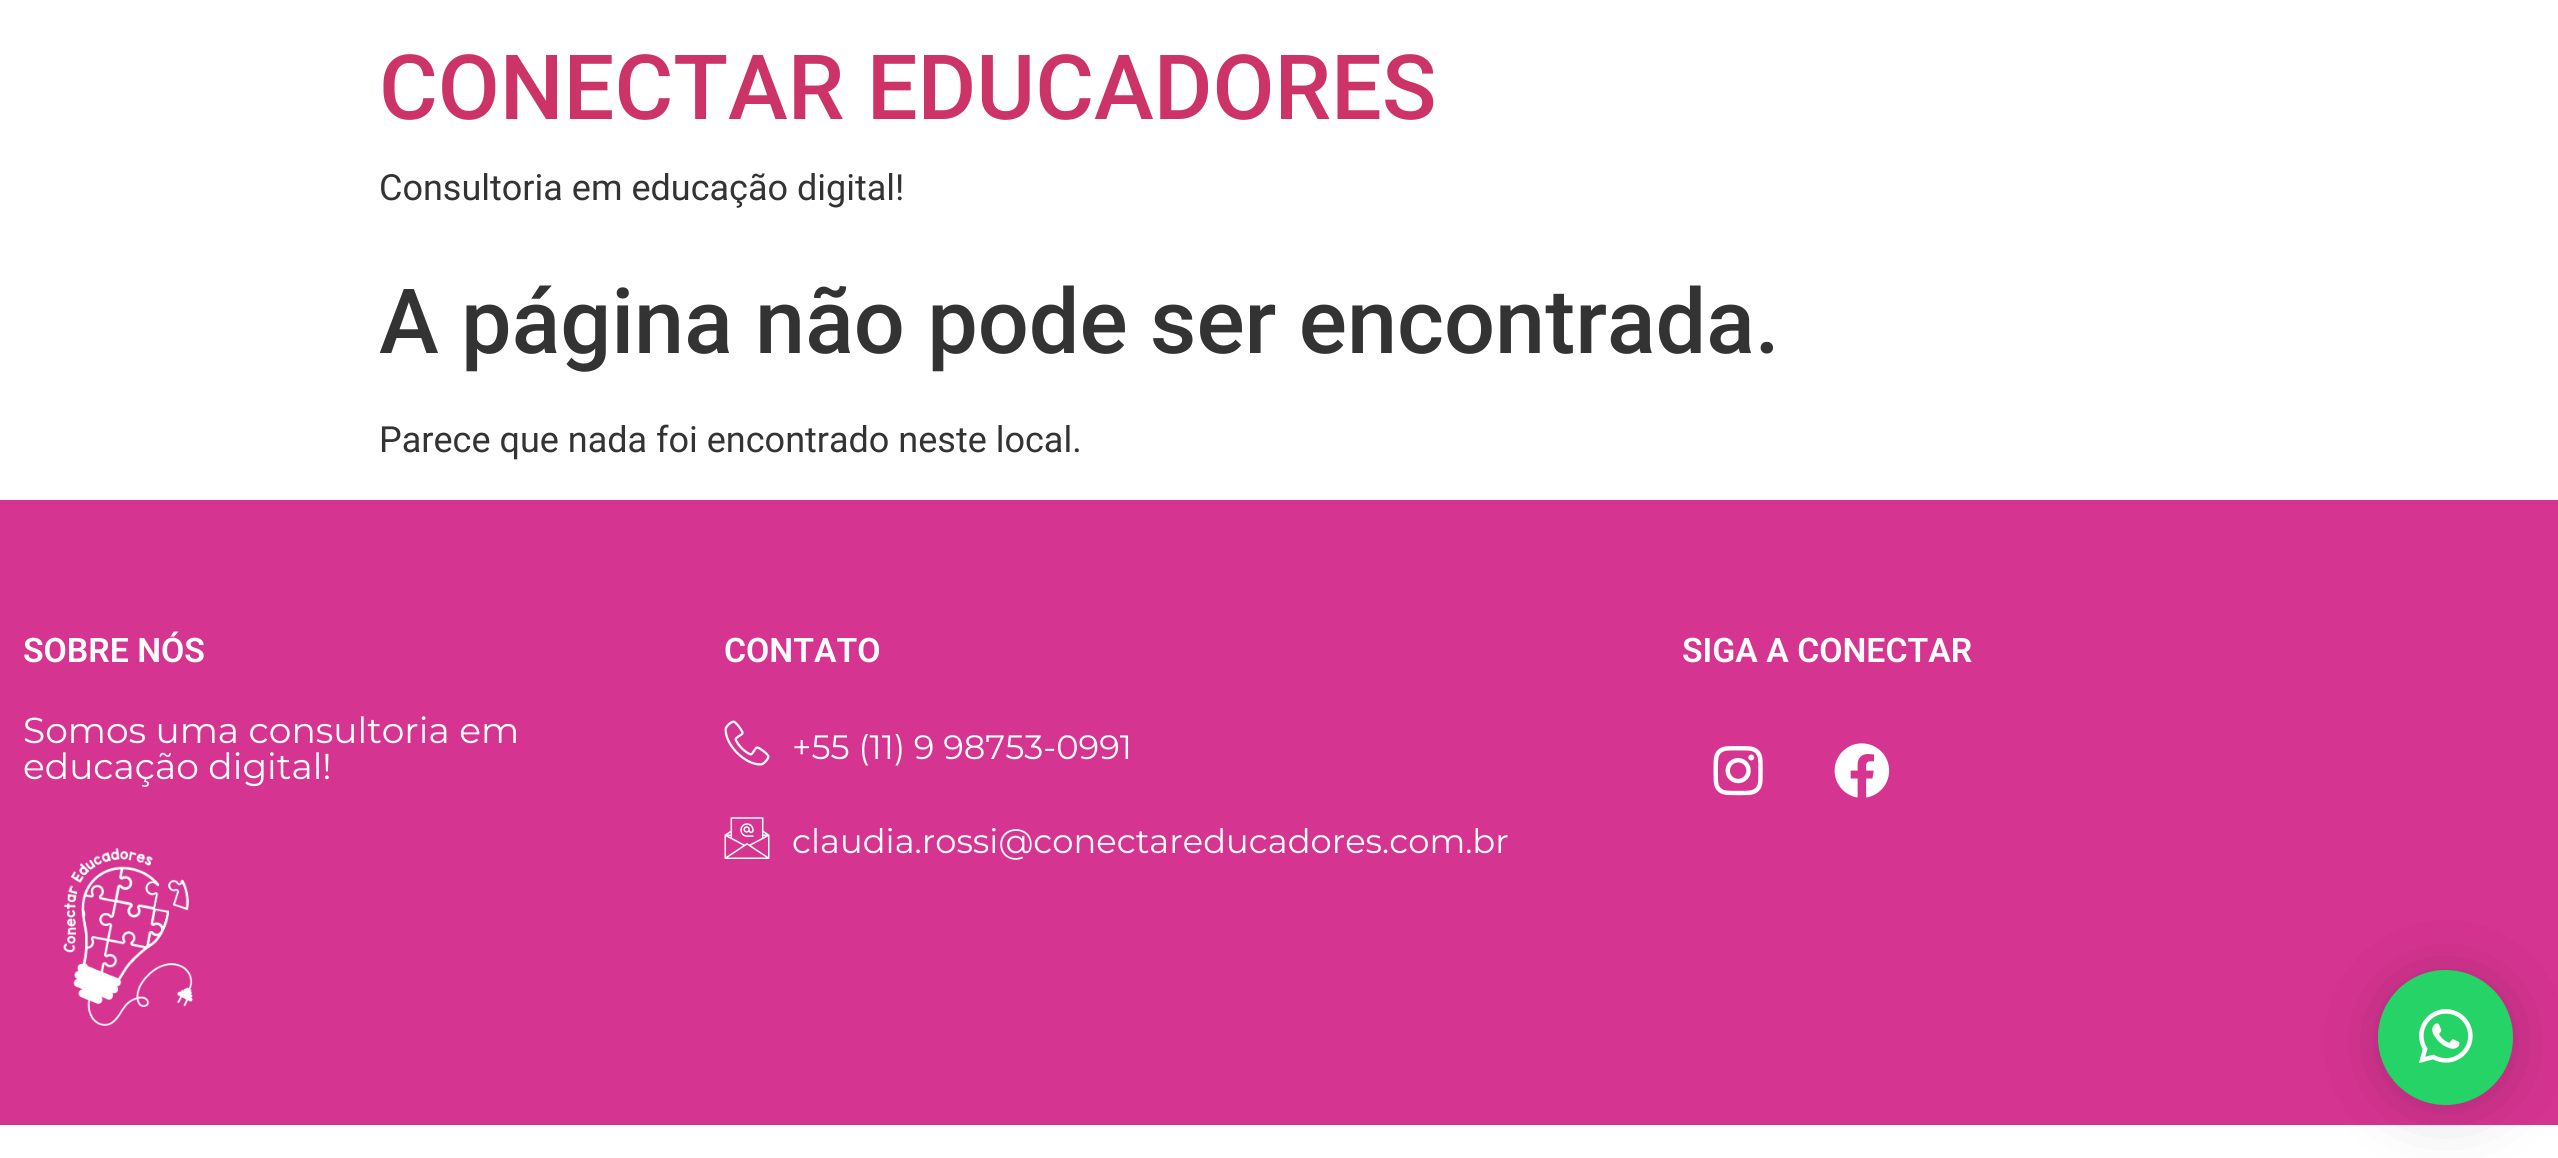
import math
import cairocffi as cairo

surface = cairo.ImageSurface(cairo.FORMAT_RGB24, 2558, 1158)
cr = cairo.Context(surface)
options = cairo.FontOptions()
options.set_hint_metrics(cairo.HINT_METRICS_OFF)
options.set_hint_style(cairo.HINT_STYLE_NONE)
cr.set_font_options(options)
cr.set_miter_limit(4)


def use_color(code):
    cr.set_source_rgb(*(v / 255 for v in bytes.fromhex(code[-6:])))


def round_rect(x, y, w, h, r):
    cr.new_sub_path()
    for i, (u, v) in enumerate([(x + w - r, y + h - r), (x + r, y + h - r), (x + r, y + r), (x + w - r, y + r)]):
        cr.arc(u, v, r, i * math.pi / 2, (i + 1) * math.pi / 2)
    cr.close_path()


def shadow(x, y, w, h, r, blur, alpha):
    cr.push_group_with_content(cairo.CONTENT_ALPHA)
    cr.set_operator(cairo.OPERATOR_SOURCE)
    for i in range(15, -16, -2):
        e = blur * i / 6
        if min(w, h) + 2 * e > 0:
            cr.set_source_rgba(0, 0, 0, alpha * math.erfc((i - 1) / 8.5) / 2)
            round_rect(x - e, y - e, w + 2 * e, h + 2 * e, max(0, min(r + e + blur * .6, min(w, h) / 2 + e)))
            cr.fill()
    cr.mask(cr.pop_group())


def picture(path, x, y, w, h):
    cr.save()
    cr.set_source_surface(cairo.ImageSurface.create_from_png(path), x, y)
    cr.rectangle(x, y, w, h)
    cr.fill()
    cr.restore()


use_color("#ffffff")
cr.paint()
cr.select_font_face("Roboto Medium")
cr.set_font_size(90)
use_color("#cc3366")
cr.move_to(379, 119)
cr.show_text("CONECTAR EDUCADORES")
cr.select_font_face("Roboto")
cr.set_font_size(36)
use_color("#333333")
cr.move_to(379, 200)
cr.show_text("Consultoria em educação digital!")
cr.select_font_face("Roboto Medium")
cr.set_font_size(90)
cr.move_to(379, 353)
cr.show_text("A página não pode ser encontrada.")
cr.select_font_face("Roboto")
cr.set_font_size(36)
cr.move_to(379, 452)
cr.show_text("Parece que nada foi encontrado neste local.")
use_color("#d63491")
cr.rectangle(0, 500, 2558, 625)
cr.fill()
cr.select_font_face("Roboto SemiBold")
cr.set_font_size(33.75)
use_color("#ffffff")
cr.move_to(23, 662)
cr.show_text("SOBRE NÓS")
cr.select_font_face("Montserrat")
cr.set_font_size(36)
cr.move_to(23, 743)
cr.show_text("Somos uma consultoria em")
cr.move_to(23, 779)
cr.show_text("educação digital!")
picture("img1.png", 63, 848, 130, 178)
cr.select_font_face("Roboto SemiBold")
cr.set_font_size(33.75)
cr.move_to(724, 662)
cr.show_text("CONTATO")
picture("img2.png", 724, 720, 46, 46)
cr.select_font_face("Montserrat")
cr.move_to(792, 759)
cr.show_text("+55 (11) 9 98753-0991")
picture("img3.png", 724, 817, 46, 42)
cr.move_to(792, 853)
cr.show_text("claudia.rossi@conectareducadores.com.br")
cr.select_font_face("Roboto SemiBold")
cr.move_to(1682, 662)
cr.show_text("SIGA A CONECTAR")
picture("img4.png", 1713, 746, 50, 50)
picture("img5.png", 1834, 743, 56, 55)
use_color("#000000")
shadow(2378, 974, 135, 135, 67.5, 36, 0.16)
shadow(2378, 972, 135, 135, 67.5, 7, 0.06)
use_color("#25d366")
cr.arc(2445.5, 1037.5, 67.5, 0, 2 * math.pi)
cr.fill()
picture("img6.png", 2419, 1009, 54, 54)
surface.write_to_png("result.png")
